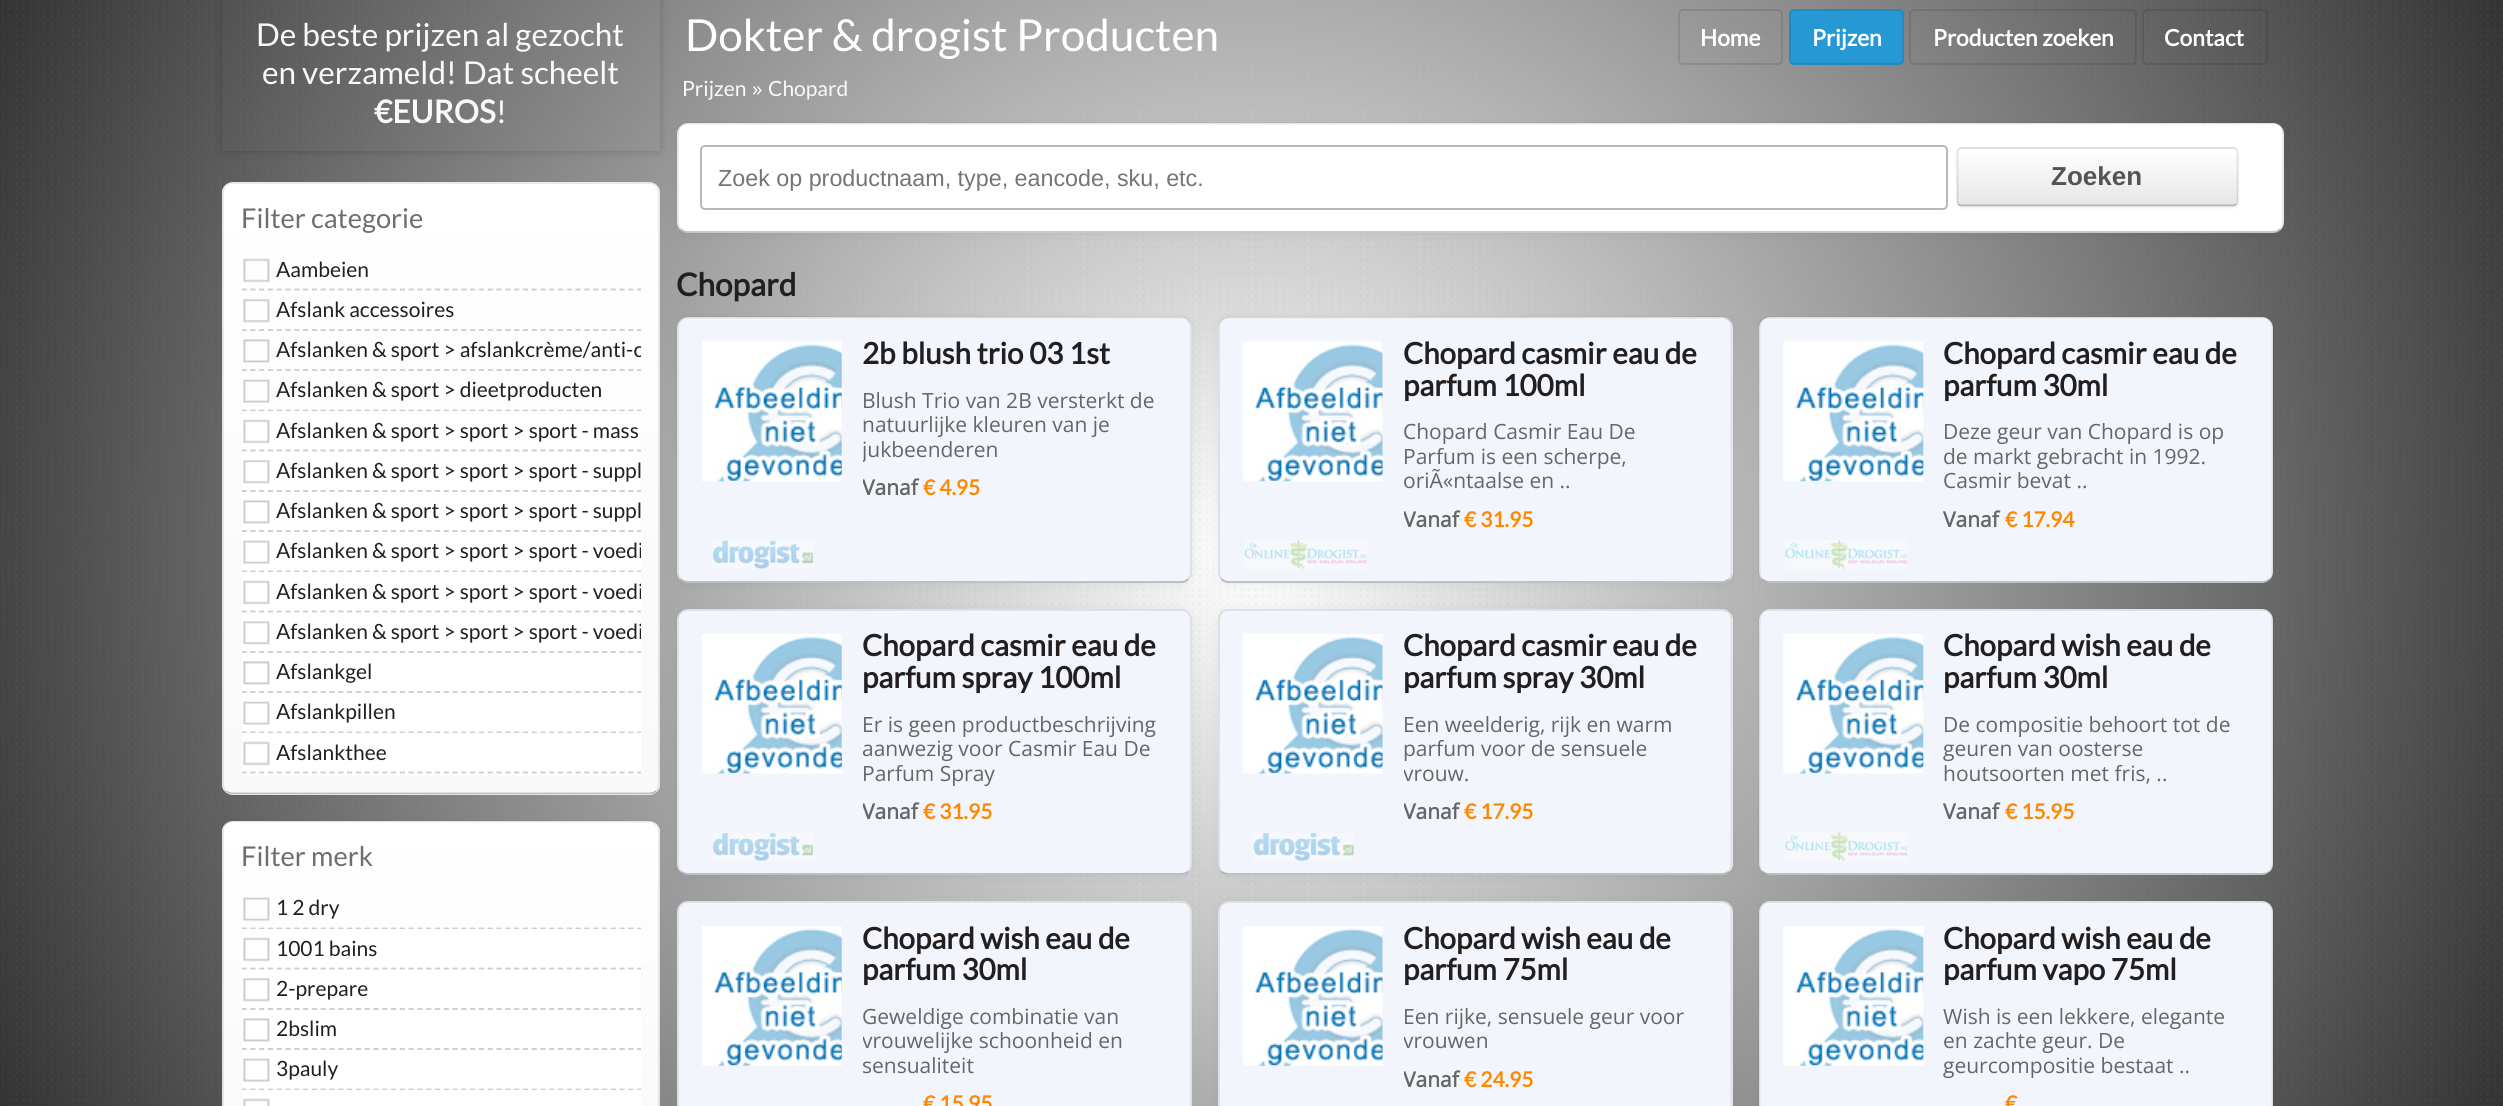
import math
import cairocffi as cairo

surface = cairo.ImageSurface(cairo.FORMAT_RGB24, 2503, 1106)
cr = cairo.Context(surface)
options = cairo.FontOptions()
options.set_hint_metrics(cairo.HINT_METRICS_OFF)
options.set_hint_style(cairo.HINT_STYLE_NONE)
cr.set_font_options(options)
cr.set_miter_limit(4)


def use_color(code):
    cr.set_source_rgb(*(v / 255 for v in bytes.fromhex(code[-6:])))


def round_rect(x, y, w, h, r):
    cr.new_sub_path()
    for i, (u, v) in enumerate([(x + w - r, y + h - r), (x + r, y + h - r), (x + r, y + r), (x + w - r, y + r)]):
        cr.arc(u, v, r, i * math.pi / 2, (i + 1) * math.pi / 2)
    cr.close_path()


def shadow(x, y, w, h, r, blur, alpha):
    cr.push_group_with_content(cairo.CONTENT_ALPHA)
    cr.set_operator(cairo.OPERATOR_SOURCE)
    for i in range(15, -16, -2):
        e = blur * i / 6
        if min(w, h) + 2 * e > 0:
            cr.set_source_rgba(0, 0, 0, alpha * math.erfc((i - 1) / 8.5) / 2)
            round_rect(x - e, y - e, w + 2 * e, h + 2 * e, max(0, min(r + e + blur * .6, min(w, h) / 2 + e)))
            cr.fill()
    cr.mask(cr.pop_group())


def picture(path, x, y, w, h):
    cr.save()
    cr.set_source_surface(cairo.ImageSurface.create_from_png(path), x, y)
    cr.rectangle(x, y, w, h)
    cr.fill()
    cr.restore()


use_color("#ffffff")
cr.paint()
gradient = cairo.RadialGradient(1252, 553, 0, 1252, 553, 1369)
gradient.add_color_stop_rgba(0, 1, 1, 1, 1)
gradient.add_color_stop_rgba(1, 0.2, 0.2, 0.2, 1)
cr.set_source(gradient)
cr.rectangle(0, 0, 2503, 1106)
cr.fill()
picture("img1.png", 2, 0, 2501, 1102)
cr.save()
cr.set_fill_rule(cairo.FILL_RULE_EVEN_ODD)
cr.new_path()
cr.move_to(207, 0)
cr.line_to(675, 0)
cr.line_to(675, 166)
cr.line_to(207, 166)
cr.close_path()
cr.move_to(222, -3)
cr.line_to(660, -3)
cr.line_to(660, 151)
cr.line_to(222, 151)
cr.close_path()
cr.clip()
use_color("#000000")
shadow(222, -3, 438, 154, 0, 4.5, 0.2)
cr.restore()
cr.select_font_face("Lato")
cr.set_font_size(31.5)
use_color("#f9f9f9")
cr.move_to(256, 46)
cr.show_text("De beste prijzen al gezocht")
cr.move_to(262, 84)
cr.show_text("en verzameld! Dat scheelt")
cr.select_font_face("Lato", cairo.FONT_SLANT_NORMAL, cairo.FONT_WEIGHT_BOLD)
cr.move_to(374, 123)
cr.show_text("€EUROS")
cr.select_font_face("Lato")
cr.move_to(496, 123)
cr.show_text("!")
use_color("#ffffff")
round_rect(222, 182, 438, 613, 11)
cr.fill()
cr.save()
round_rect(222, 182, 438, 613, 11)
cr.clip()
gradient = cairo.LinearGradient(441, 184, 441, 793)
gradient.add_color_stop_rgba(0, 1, 1, 1, 1)
gradient.add_color_stop_rgba(1, 0.976, 0.976, 0.976, 1)
cr.set_source(gradient)
cr.rectangle(222, 184, 438, 609)
cr.fill()
cr.restore()
cr.new_path()
cr.move_to(656, 791)
cr.curve_to(654.5, 792.5, 652, 793.5, 649, 793.5)
cr.line_to(233, 793.5)
cr.curve_to(230, 793.5, 227.5, 792.5, 226, 791)
cr.set_source_rgba(0, 0, 0, 0.25)
cr.set_line_width(1.8)
cr.stroke()
cr.new_path()
cr.move_to(226, 791)
cr.curve_to(224, 789, 223, 786.5, 223, 784)
cr.line_to(223, 192.5)
cr.curve_to(223, 190, 224, 187.5, 226, 185.5)
cr.curve_to(227.5, 184, 230, 183, 233, 183)
cr.line_to(649, 183)
cr.curve_to(652, 183, 654.5, 184, 656, 185.5)
cr.curve_to(658, 187.5, 659, 190, 659, 192.5)
cr.line_to(659, 784)
cr.curve_to(659, 786.5, 658, 789, 656, 791)
cr.set_source_rgba(0, 0, 0, 0.1)
cr.stroke()
cr.set_font_size(27.25)
use_color("#6d6e70")
cr.move_to(241, 228)
cr.show_text("Filter categorie")
picture("img2.png", 243, 258, 27, 25)
cr.save()
cr.rectangle(242, 250, 399, 525)
cr.clip()
cr.new_path()
cr.move_to(241.5, 289.5)
cr.line_to(808.5, 289.5)
use_color("#cccccc")
cr.set_dash([5.25, 3.54])
cr.stroke()
cr.restore()
cr.set_font_size(21)
use_color("#231f20")
cr.move_to(276, 277)
cr.show_text("Aambeien")
picture("img3.png", 243, 299, 27, 24)
cr.save()
cr.rectangle(242, 250, 399, 525)
cr.clip()
cr.new_path()
cr.move_to(241.5, 330)
cr.line_to(808.5, 330)
use_color("#cccccc")
cr.set_dash([5.25, 3.54])
cr.stroke()
cr.restore()
cr.move_to(276, 317)
cr.show_text("Afslank accessoires")
picture("img4.png", 243, 339, 27, 24)
cr.save()
cr.rectangle(242, 250, 399, 525)
cr.clip()
cr.new_path()
cr.move_to(241.5, 370)
cr.line_to(808.5, 370)
use_color("#cccccc")
cr.set_dash([5.25, 3.54])
cr.stroke()
cr.restore()
cr.save()
cr.rectangle(242, 331, 399, 38)
cr.clip()
cr.move_to(276, 357)
cr.show_text("Afslanken & sport > afslankcrème/anti-c")
cr.restore()
picture("img5.png", 243, 379, 27, 24)
cr.save()
cr.rectangle(242, 250, 399, 525)
cr.clip()
cr.new_path()
cr.move_to(241.5, 410.5)
cr.line_to(808.5, 410.5)
use_color("#cccccc")
cr.set_dash([5.25, 3.54])
cr.stroke()
cr.restore()
cr.move_to(276, 397)
cr.show_text("Afslanken & sport > dieetproducten")
use_color("#ffffff")
cr.rectangle(242, 411, 399, 161)
cr.fill()
picture("img6.png", 243, 419, 27, 25)
cr.save()
cr.rectangle(242, 250, 399, 525)
cr.clip()
cr.new_path()
cr.move_to(241.5, 450.5)
cr.line_to(808.5, 450.5)
use_color("#cccccc")
cr.set_dash([5.25, 3.54])
cr.stroke()
cr.restore()
use_color("#231f20")
cr.move_to(276, 438)
cr.show_text("Afslanken & sport > sport > sport - mass")
picture("img7.png", 243, 460, 27, 24)
cr.save()
cr.rectangle(242, 250, 399, 525)
cr.clip()
cr.new_path()
cr.move_to(241.5, 491)
cr.line_to(808.5, 491)
use_color("#cccccc")
cr.set_dash([5.25, 3.54])
cr.stroke()
cr.restore()
cr.move_to(276, 478)
cr.show_text("Afslanken & sport > sport > sport - suppl")
picture("img4.png", 243, 500, 27, 24)
cr.save()
cr.rectangle(242, 250, 399, 525)
cr.clip()
cr.new_path()
cr.move_to(241.5, 531)
cr.line_to(808.5, 531)
use_color("#cccccc")
cr.set_dash([5.25, 3.54])
cr.stroke()
cr.restore()
cr.move_to(276, 518)
cr.show_text("Afslanken & sport > sport > sport - suppl")
picture("img5.png", 243, 540, 27, 24)
cr.save()
cr.rectangle(242, 250, 399, 525)
cr.clip()
cr.new_path()
cr.move_to(241.5, 571.5)
cr.line_to(808.5, 571.5)
use_color("#cccccc")
cr.set_dash([5.25, 3.54])
cr.stroke()
cr.restore()
cr.save()
cr.rectangle(242, 532, 399, 39)
cr.clip()
cr.move_to(276, 558)
cr.show_text("Afslanken & sport > sport > sport - voedi")
cr.restore()
use_color("#ffffff")
cr.rectangle(242, 572, 399, 161)
cr.fill()
picture("img6.png", 243, 580, 27, 25)
cr.save()
cr.rectangle(242, 250, 399, 525)
cr.clip()
cr.new_path()
cr.move_to(241.5, 611.5)
cr.line_to(808.5, 611.5)
use_color("#cccccc")
cr.set_dash([5.25, 3.54])
cr.stroke()
cr.restore()
cr.save()
cr.rectangle(242, 572, 399, 39)
cr.clip()
use_color("#231f20")
cr.move_to(276, 599)
cr.show_text("Afslanken & sport > sport > sport - voedi")
cr.restore()
picture("img7.png", 243, 621, 27, 24)
cr.save()
cr.rectangle(242, 250, 399, 525)
cr.clip()
cr.new_path()
cr.move_to(241.5, 652)
cr.line_to(808.5, 652)
use_color("#cccccc")
cr.set_dash([5.25, 3.54])
cr.stroke()
cr.restore()
cr.save()
cr.rectangle(242, 613, 399, 38)
cr.clip()
use_color("#231f20")
cr.move_to(276, 639)
cr.show_text("Afslanken & sport > sport > sport - voedi")
cr.restore()
picture("img4.png", 243, 661, 27, 24)
cr.save()
cr.rectangle(242, 250, 399, 525)
cr.clip()
cr.new_path()
cr.move_to(241.5, 692)
cr.line_to(808.5, 692)
use_color("#cccccc")
cr.set_dash([5.25, 3.54])
cr.stroke()
cr.restore()
use_color("#231f20")
cr.move_to(276, 679)
cr.show_text("Afslankgel")
picture("img5.png", 243, 701, 27, 24)
cr.save()
cr.rectangle(242, 250, 399, 525)
cr.clip()
cr.new_path()
cr.move_to(241.5, 732.5)
cr.line_to(808.5, 732.5)
use_color("#cccccc")
cr.set_dash([5.25, 3.54])
cr.stroke()
cr.restore()
cr.move_to(276, 719)
cr.show_text("Afslankpillen")
use_color("#ffffff")
cr.rectangle(242, 733, 399, 42)
cr.fill()
picture("img6.png", 243, 741, 27, 25)
cr.save()
cr.rectangle(242, 250, 399, 525)
cr.clip()
cr.new_path()
cr.move_to(241.5, 772.5)
cr.line_to(808.5, 772.5)
use_color("#cccccc")
cr.set_dash([5.25, 3.54])
cr.stroke()
cr.restore()
use_color("#231f20")
cr.move_to(276, 760)
cr.show_text("Afslankthee")
use_color("#ffffff")
round_rect(222, 821, 438, 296, 11)
cr.fill()
cr.save()
round_rect(222, 821, 438, 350, 11)
cr.clip()
gradient = cairo.LinearGradient(441, 823, 441, 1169)
gradient.add_color_stop_rgba(0, 1, 1, 1, 1)
gradient.add_color_stop_rgba(1, 0.976, 0.976, 0.976, 1)
cr.set_source(gradient)
cr.rectangle(222, 823, 438, 283)
cr.fill()
cr.restore()
cr.new_path()
cr.move_to(226, 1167)
cr.curve_to(224, 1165.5, 223, 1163, 223, 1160)
cr.line_to(223, 831)
cr.curve_to(223, 828.5, 224, 826, 226, 824.5)
cr.curve_to(227.5, 822.5, 230, 821.5, 233, 821.5)
cr.line_to(649, 821.5)
cr.curve_to(652, 821.5, 654.5, 822.5, 656, 824.5)
cr.curve_to(658, 826, 659, 828.5, 659, 831)
cr.line_to(659, 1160)
cr.curve_to(659, 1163, 658, 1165.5, 656, 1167)
cr.set_source_rgba(0, 0, 0, 0.1)
cr.stroke()
cr.set_font_size(27.25)
use_color("#6d6e70")
cr.move_to(241, 866)
cr.show_text("Filter merk")
picture("img5.png", 243, 897, 27, 24)
cr.save()
cr.rectangle(242, 889, 399, 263)
cr.clip()
cr.new_path()
cr.move_to(241.5, 928.5)
cr.line_to(808.5, 928.5)
use_color("#cccccc")
cr.set_dash([5.25, 3.54])
cr.stroke()
cr.restore()
cr.set_font_size(21)
use_color("#231f20")
cr.move_to(276, 915)
cr.show_text("1 2 dry")
use_color("#ffffff")
cr.rectangle(242, 929, 399, 161)
cr.fill()
picture("img6.png", 243, 937, 27, 25)
cr.save()
cr.rectangle(242, 889, 399, 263)
cr.clip()
cr.new_path()
cr.move_to(241.5, 968.5)
cr.line_to(808.5, 968.5)
use_color("#cccccc")
cr.set_dash([5.25, 3.54])
cr.stroke()
cr.restore()
use_color("#231f20")
cr.move_to(276, 956)
cr.show_text("1001 bains")
picture("img7.png", 243, 978, 27, 24)
cr.save()
cr.rectangle(242, 889, 399, 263)
cr.clip()
cr.new_path()
cr.move_to(241.5, 1009)
cr.line_to(808.5, 1009)
use_color("#cccccc")
cr.set_dash([5.25, 3.54])
cr.stroke()
cr.restore()
cr.move_to(276, 996)
cr.show_text("2-prepare")
picture("img4.png", 243, 1018, 27, 24)
cr.save()
cr.rectangle(242, 889, 399, 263)
cr.clip()
cr.new_path()
cr.move_to(241.5, 1049)
cr.line_to(808.5, 1049)
use_color("#cccccc")
cr.set_dash([5.25, 3.54])
cr.stroke()
cr.restore()
cr.move_to(276, 1036)
cr.show_text("2bslim")
picture("img5.png", 243, 1058, 27, 24)
cr.save()
cr.rectangle(242, 889, 399, 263)
cr.clip()
cr.new_path()
cr.move_to(241.5, 1089.5)
cr.line_to(808.5, 1089.5)
use_color("#cccccc")
cr.set_dash([5.25, 3.54])
cr.stroke()
cr.restore()
cr.move_to(276, 1076)
cr.show_text("3pauly")
use_color("#ffffff")
cr.rectangle(242, 1090, 399, 16)
cr.fill()
picture("img8.png", 243, 1098, 27, 8)
cr.set_font_size(44.1)
cr.move_to(685, 51)
cr.show_text("Dokter & drogist Producten")
round_rect(1679, 10, 103, 54, 4)
cr.set_source_rgba(0, 0, 0, 0.1)
cr.set_line_width(2)
cr.stroke()
cr.select_font_face("Lato", cairo.FONT_SLANT_NORMAL, cairo.FONT_WEIGHT_BOLD)
cr.set_font_size(22.75)
use_color("#ffffff")
cr.move_to(1700, 46)
cr.show_text("Home")
use_color("#2699d5")
round_rect(1789, 9, 115, 56, 5)
cr.fill()
round_rect(1790, 10, 113, 54, 4)
cr.set_source_rgba(0, 0, 0, 0.1)
cr.stroke()
use_color("#ffffff")
cr.move_to(1812, 46)
cr.show_text("Prijzen")
round_rect(1910, 10, 226, 54, 4)
cr.set_source_rgba(0, 0, 0, 0.1)
cr.stroke()
use_color("#ffffff")
cr.move_to(1933, 46)
cr.show_text("Producten zoeken")
round_rect(2143, 10, 124, 54, 4)
cr.set_source_rgba(0, 0, 0, 0.1)
cr.stroke()
use_color("#ffffff")
cr.move_to(2164, 46)
cr.show_text("Contact")
cr.select_font_face("Lato")
cr.set_font_size(21)
use_color("#f9f9f9")
cr.move_to(682, 96)
cr.show_text("Prijzen")
cr.select_font_face("Open Sans")
cr.move_to(752, 96)
cr.show_text("»")
cr.select_font_face("Lato")
cr.move_to(768, 96)
cr.show_text("Chopard")
use_color("#000000")
shadow(677, 124, 1607, 111, 11, 4.5, 0.05)
use_color("#ffffff")
round_rect(677, 123, 1607, 110, 11)
cr.fill()
cr.new_path()
cr.move_to(2280, 229)
cr.curve_to(2278.5, 231, 2276, 232, 2273, 232)
cr.line_to(688, 232)
cr.curve_to(685, 232, 682.5, 231, 681, 229)
cr.set_source_rgba(0, 0, 0, 0.25)
cr.set_line_width(1.8)
cr.stroke()
cr.new_path()
cr.move_to(681, 229)
cr.curve_to(679, 227.5, 678, 225, 678, 222)
cr.line_to(678, 133)
cr.curve_to(678, 130.5, 679, 128, 681, 126)
cr.curve_to(682.5, 124.5, 685, 123.5, 688, 123.5)
cr.line_to(2273, 123.5)
cr.curve_to(2276, 123.5, 2278.5, 124.5, 2280, 126)
cr.curve_to(2282, 128, 2283, 130.5, 2283, 133)
cr.line_to(2283, 222)
cr.curve_to(2283, 225, 2282, 227.5, 2280, 229)
cr.set_source_rgba(0, 0, 0, 0.1)
cr.stroke()
round_rect(701, 146, 1246, 63, 4)
use_color("#b6b8ba")
cr.set_line_width(2)
cr.stroke()
cr.select_font_face("Liberation Sans")
cr.set_font_size(23.3)
use_color("#757575")
cr.move_to(718, 186)
cr.show_text("Zoek op productnaam, type, eancode, sku, etc.")
use_color("#000000")
shadow(1957, 149, 281, 59, 5, 2, 0.05)
use_color("#f5f5f5")
round_rect(1957, 147, 281, 60, 5)
cr.fill()
cr.save()
round_rect(1957, 147, 281, 60, 5)
cr.clip()
gradient = cairo.LinearGradient(2097, 149, 2097, 205)
gradient.add_color_stop_rgba(0, 1, 1, 1, 1)
gradient.add_color_stop_rgba(1, 0.902, 0.902, 0.902, 1)
cr.set_source(gradient)
cr.rectangle(1957, 149, 281, 56)
cr.fill()
cr.restore()
cr.set_source_rgba(1, 1, 1, 0.2)
cr.new_path()
cr.move_to(1962, 150)
cr.line_to(2233, 150)
cr.curve_to(2235, 150, 2236, 152, 2236, 154)
cr.line_to(2236, 204)
cr.curve_to(2237, 203, 2237, 202, 2237, 201)
cr.line_to(2237, 153)
cr.curve_to(2237, 151, 2235, 149, 2233, 149)
cr.line_to(1962, 149)
cr.curve_to(1960, 149, 1958, 151, 1958, 153)
cr.line_to(1958, 154)
cr.curve_to(1958, 152, 1960, 150, 1962, 150)
cr.close_path()
cr.fill()
cr.new_path()
cr.move_to(2236, 204.5)
cr.curve_to(2235.5, 205, 2234, 205.5, 2233, 205.5)
cr.line_to(1962, 205.5)
cr.curve_to(1960.5, 205.5, 1959.5, 205, 1958.5, 204.5)
cr.set_source_rgba(0, 0, 0, 0.25)
cr.set_line_width(1.8)
cr.stroke()
cr.new_path()
cr.move_to(1958.5, 204.5)
cr.curve_to(1958, 203.5, 1957.5, 202.5, 1957.5, 201)
cr.line_to(1957.5, 152)
cr.curve_to(1957.5, 151, 1958, 150, 1958.5, 149)
cr.curve_to(1959.5, 148.5, 1960.5, 148, 1962, 148)
cr.line_to(2233, 148)
cr.curve_to(2234, 148, 2235.5, 148.5, 2236, 149)
cr.curve_to(2237, 150, 2237.5, 151, 2237.5, 152)
cr.line_to(2237.5, 201)
cr.curve_to(2237.5, 202.5, 2237, 203.5, 2236, 204.5)
cr.set_source_rgba(0, 0, 0, 0.1)
cr.stroke()
cr.select_font_face("Liberation Sans", cairo.FONT_SLANT_NORMAL, cairo.FONT_WEIGHT_BOLD)
cr.set_font_size(26)
use_color("#545456")
cr.move_to(2051, 185)
cr.show_text("Zoeken")
cr.select_font_face("Lato", cairo.FONT_SLANT_NORMAL, cairo.FONT_WEIGHT_BOLD)
cr.set_font_size(31.5)
use_color("#231f20")
cr.move_to(676, 296)
cr.show_text("Chopard")
use_color("#000000")
shadow(677, 319, 515, 266, 11, 4.5, 0.05)
use_color("#f2f5fb")
round_rect(677, 317, 515, 266, 11)
cr.fill()
use_color("#f5f7fc")
cr.new_path()
cr.move_to(688, 320)
cr.line_to(1181, 320)
cr.curve_to(1186, 320, 1190, 324, 1190, 329)
cr.curve_to(1190, 324, 1187, 319, 1181, 319)
cr.line_to(688, 319)
cr.curve_to(682, 319, 679, 324, 679, 329)
cr.curve_to(679, 324, 683, 320, 688, 320)
cr.close_path()
cr.fill()
cr.new_path()
cr.move_to(1188, 579)
cr.curve_to(1186.5, 581, 1184, 582, 1181, 582)
cr.line_to(688, 582)
cr.curve_to(685, 582, 682.5, 581, 681, 579)
cr.set_source_rgba(0, 0, 0, 0.25)
cr.stroke()
cr.new_path()
cr.move_to(681, 579)
cr.curve_to(679, 577.5, 678, 575, 678, 572)
cr.line_to(678, 327)
cr.curve_to(678, 324.5, 679, 322, 681, 320.5)
cr.curve_to(682.5, 318.5, 685, 317.5, 688, 317.5)
cr.line_to(1181, 317.5)
cr.curve_to(1184, 317.5, 1186.5, 318.5, 1188, 320.5)
cr.curve_to(1190, 322, 1191, 324.5, 1191, 327)
cr.line_to(1191, 572)
cr.curve_to(1191, 575, 1190, 577.5, 1188, 579)
cr.set_source_rgba(0, 0, 0, 0.1)
cr.stroke()
picture("img9.png", 702, 341, 140, 141)
cr.set_font_size(29.5)
use_color("#231f20")
cr.move_to(862, 364)
cr.show_text("2b blush trio 03 1st")
cr.select_font_face("Open Sans")
cr.set_font_size(21)
use_color("#666666")
cr.move_to(862, 408)
cr.show_text("Blush Trio van 2B versterkt de")
cr.move_to(862, 432)
cr.show_text("natuurlijke kleuren van je")
cr.save()
cr.rectangle(863, 389, 306, 73)
cr.clip()
cr.move_to(862, 457)
cr.show_text("jukbeenderen")
cr.restore()
cr.save()
cr.rectangle(863, 473, 306, 31)
cr.clip()
cr.select_font_face("Open Sans", cairo.FONT_SLANT_NORMAL, cairo.FONT_WEIGHT_BOLD)
cr.move_to(862, 495)
cr.show_text("Vanaf")
cr.restore()
cr.select_font_face("Lato", cairo.FONT_SLANT_NORMAL, cairo.FONT_WEIGHT_BOLD)
use_color("#ff8800")
cr.move_to(923, 495)
cr.show_text("€ 4.95")
picture("img10.png", 712, 540, 102, 29)
use_color("#000000")
shadow(1218, 319, 515, 266, 11, 4.5, 0.05)
use_color("#f2f5fb")
round_rect(1218, 317, 515, 266, 11)
cr.fill()
use_color("#f5f7fc")
cr.new_path()
cr.move_to(1228, 320)
cr.line_to(1722, 320)
cr.curve_to(1727, 320, 1731, 324, 1731, 329)
cr.curve_to(1731, 324, 1728, 319, 1722, 319)
cr.line_to(1229, 319)
cr.curve_to(1223, 319, 1220, 324, 1220, 329)
cr.curve_to(1220, 324, 1224, 320, 1228, 320)
cr.close_path()
cr.fill()
cr.new_path()
cr.move_to(1729, 579)
cr.curve_to(1727, 581, 1724.5, 582, 1722, 582)
cr.line_to(1228.5, 582)
cr.curve_to(1226, 582, 1223.5, 581, 1221.5, 579)
cr.set_source_rgba(0, 0, 0, 0.25)
cr.stroke()
cr.new_path()
cr.move_to(1221.5, 579)
cr.curve_to(1220, 577.5, 1219, 575, 1219, 572)
cr.line_to(1219, 327)
cr.curve_to(1219, 324.5, 1220, 322, 1221.5, 320.5)
cr.curve_to(1223.5, 318.5, 1226, 317.5, 1228.5, 317.5)
cr.line_to(1722, 317.5)
cr.curve_to(1724.5, 317.5, 1727, 318.5, 1729, 320.5)
cr.curve_to(1730.5, 322, 1731.5, 324.5, 1731.5, 327)
cr.line_to(1731.5, 572)
cr.curve_to(1731.5, 575, 1730.5, 577.5, 1729, 579)
cr.set_source_rgba(0, 0, 0, 0.1)
cr.stroke()
picture("img11.png", 1243, 341, 140, 141)
cr.set_font_size(29.5)
use_color("#231f20")
cr.move_to(1403, 364)
cr.show_text("Chopard casmir eau de")
cr.move_to(1403, 396)
cr.show_text("parfum 100ml")
cr.select_font_face("Open Sans")
cr.set_font_size(21)
use_color("#666666")
cr.move_to(1403, 439)
cr.show_text("Chopard Casmir Eau De")
cr.move_to(1403, 464)
cr.show_text("Parfum is een scherpe,")
cr.save()
cr.rectangle(1404, 420, 306, 74)
cr.clip()
cr.move_to(1403, 488)
cr.show_text("oriÃ«ntaalse en ..")
cr.restore()
cr.save()
cr.rectangle(1404, 504, 306, 32)
cr.clip()
cr.select_font_face("Open Sans", cairo.FONT_SLANT_NORMAL, cairo.FONT_WEIGHT_BOLD)
cr.move_to(1403, 527)
cr.show_text("Vanaf")
cr.restore()
cr.select_font_face("Lato", cairo.FONT_SLANT_NORMAL, cairo.FONT_WEIGHT_BOLD)
use_color("#ff8800")
cr.move_to(1464, 527)
cr.show_text("€ 31.95")
picture("img12.png", 1244, 540, 123, 30)
use_color("#f2f5fb")
round_rect(1759, 317, 514, 266, 11)
cr.fill()
use_color("#f5f7fc")
cr.new_path()
cr.move_to(1769, 320)
cr.line_to(2263, 320)
cr.curve_to(2268, 320, 2272, 324, 2272, 329)
cr.line_to(2272, 328)
cr.curve_to(2272, 323, 2268, 319, 2263, 319)
cr.line_to(1770, 319)
cr.curve_to(1767, 319, 1765, 320, 1763, 322)
cr.curve_to(1765, 321, 1767, 320, 1769, 320)
cr.close_path()
cr.fill()
cr.new_path()
cr.move_to(2269.5, 579)
cr.curve_to(2268, 581, 2265.5, 582, 2263, 582)
cr.line_to(1769, 582)
cr.curve_to(1766.5, 582, 1764, 581, 1762.5, 579)
cr.set_source_rgba(0, 0, 0, 0.25)
cr.stroke()
cr.new_path()
cr.move_to(1762.5, 579)
cr.curve_to(1760.5, 577.5, 1759.5, 575, 1759.5, 572)
cr.line_to(1759.5, 327)
cr.curve_to(1759.5, 324.5, 1760.5, 322, 1762.5, 320.5)
cr.curve_to(1764, 318.5, 1766.5, 317.5, 1769, 317.5)
cr.line_to(2263, 317.5)
cr.curve_to(2265.5, 317.5, 2268, 318.5, 2269.5, 320.5)
cr.curve_to(2271.5, 322, 2272.5, 324.5, 2272.5, 327)
cr.line_to(2272.5, 572)
cr.curve_to(2272.5, 575, 2271.5, 577.5, 2269.5, 579)
cr.set_source_rgba(0, 0, 0, 0.1)
cr.stroke()
picture("img13.png", 1783, 341, 141, 141)
cr.set_font_size(29.5)
use_color("#231f20")
cr.move_to(1943, 364)
cr.show_text("Chopard casmir eau de")
cr.move_to(1943, 396)
cr.show_text("parfum 30ml")
cr.select_font_face("Open Sans")
cr.set_font_size(21)
use_color("#666666")
cr.move_to(1943, 439)
cr.show_text("Deze geur van Chopard is op")
cr.move_to(1943, 464)
cr.show_text("de markt gebracht in 1992.")
cr.move_to(1943, 488)
cr.show_text("Casmir bevat ..")
cr.select_font_face("Open Sans", cairo.FONT_SLANT_NORMAL, cairo.FONT_WEIGHT_BOLD)
cr.move_to(1943, 527)
cr.show_text("Vanaf")
cr.select_font_face("Lato", cairo.FONT_SLANT_NORMAL, cairo.FONT_WEIGHT_BOLD)
use_color("#ff8800")
cr.move_to(2005, 527)
cr.show_text("€ 17.94")
picture("img14.png", 1785, 540, 123, 30)
use_color("#000000")
shadow(677, 611, 515, 266, 11, 4.5, 0.05)
use_color("#f2f5fb")
round_rect(677, 609, 515, 266, 11)
cr.fill()
use_color("#f5f7fc")
cr.new_path()
cr.move_to(688, 612)
cr.line_to(1181, 612)
cr.curve_to(1186, 612, 1190, 616, 1190, 621)
cr.curve_to(1190, 616, 1187, 611, 1181, 611)
cr.line_to(688, 611)
cr.curve_to(682, 611, 679, 616, 679, 621)
cr.curve_to(679, 616, 683, 612, 688, 612)
cr.close_path()
cr.fill()
cr.new_path()
cr.move_to(1188, 871.5)
cr.curve_to(1186.5, 873, 1184, 874, 1181, 874)
cr.line_to(688, 874)
cr.curve_to(685, 874, 682.5, 873, 681, 871.5)
cr.set_source_rgba(0, 0, 0, 0.25)
cr.stroke()
cr.new_path()
cr.move_to(681, 871.5)
cr.curve_to(679, 869.5, 678, 867, 678, 864.5)
cr.line_to(678, 619.5)
cr.curve_to(678, 617, 679, 614.5, 681, 612.5)
cr.curve_to(682.5, 611, 685, 610, 688, 610)
cr.line_to(1181, 610)
cr.curve_to(1184, 610, 1186.5, 611, 1188, 612.5)
cr.curve_to(1190, 614.5, 1191, 617, 1191, 619.5)
cr.line_to(1191, 864.5)
cr.curve_to(1191, 867, 1190, 869.5, 1188, 871.5)
cr.set_source_rgba(0, 0, 0, 0.1)
cr.stroke()
picture("img15.png", 702, 634, 140, 140)
cr.set_font_size(29.5)
use_color("#231f20")
cr.move_to(862, 656)
cr.show_text("Chopard casmir eau de")
cr.move_to(862, 688)
cr.show_text("parfum spray 100ml")
cr.select_font_face("Open Sans")
cr.set_font_size(21)
use_color("#666666")
cr.move_to(862, 732)
cr.show_text("Er is geen productbeschrijving")
cr.move_to(862, 756)
cr.show_text("aanwezig voor Casmir Eau De")
cr.move_to(862, 781)
cr.show_text("Parfum Spray")
cr.save()
cr.rectangle(863, 796, 306, 32)
cr.clip()
cr.select_font_face("Open Sans", cairo.FONT_SLANT_NORMAL, cairo.FONT_WEIGHT_BOLD)
cr.move_to(862, 819)
cr.show_text("Vanaf")
cr.restore()
cr.select_font_face("Lato", cairo.FONT_SLANT_NORMAL, cairo.FONT_WEIGHT_BOLD)
use_color("#ff8800")
cr.move_to(923, 819)
cr.show_text("€ 31.95")
picture("img16.png", 712, 833, 102, 28)
use_color("#000000")
shadow(1218, 611, 515, 266, 11, 4.5, 0.05)
use_color("#f2f5fb")
round_rect(1218, 609, 515, 266, 11)
cr.fill()
use_color("#f5f7fc")
cr.new_path()
cr.move_to(1228, 612)
cr.line_to(1722, 612)
cr.curve_to(1727, 612, 1731, 616, 1731, 621)
cr.curve_to(1731, 616, 1728, 611, 1722, 611)
cr.line_to(1229, 611)
cr.curve_to(1223, 611, 1220, 616, 1220, 621)
cr.curve_to(1220, 616, 1224, 612, 1228, 612)
cr.close_path()
cr.fill()
cr.new_path()
cr.move_to(1729, 871.5)
cr.curve_to(1727, 873, 1724.5, 874, 1722, 874)
cr.line_to(1228.5, 874)
cr.curve_to(1226, 874, 1223.5, 873, 1221.5, 871.5)
cr.set_source_rgba(0, 0, 0, 0.25)
cr.stroke()
cr.new_path()
cr.move_to(1221.5, 871.5)
cr.curve_to(1220, 869.5, 1219, 867, 1219, 864.5)
cr.line_to(1219, 619.5)
cr.curve_to(1219, 617, 1220, 614.5, 1221.5, 612.5)
cr.curve_to(1223.5, 611, 1226, 610, 1228.5, 610)
cr.line_to(1722, 610)
cr.curve_to(1724.5, 610, 1727, 611, 1729, 612.5)
cr.curve_to(1730.5, 614.5, 1731.5, 617, 1731.5, 619.5)
cr.line_to(1731.5, 864.5)
cr.curve_to(1731.5, 867, 1730.5, 869.5, 1729, 871.5)
cr.set_source_rgba(0, 0, 0, 0.1)
cr.stroke()
picture("img17.png", 1243, 634, 140, 140)
cr.set_font_size(29.5)
use_color("#231f20")
cr.move_to(1403, 656)
cr.show_text("Chopard casmir eau de")
cr.move_to(1403, 688)
cr.show_text("parfum spray 30ml")
cr.select_font_face("Open Sans")
cr.set_font_size(21)
use_color("#666666")
cr.move_to(1403, 732)
cr.show_text("Een weelderig, rijk en warm")
cr.move_to(1403, 756)
cr.show_text("parfum voor de sensuele")
cr.save()
cr.rectangle(1404, 712, 306, 74)
cr.clip()
cr.move_to(1403, 781)
cr.show_text("vrouw.")
cr.restore()
cr.save()
cr.rectangle(1404, 796, 306, 32)
cr.clip()
cr.select_font_face("Open Sans", cairo.FONT_SLANT_NORMAL, cairo.FONT_WEIGHT_BOLD)
cr.move_to(1403, 819)
cr.show_text("Vanaf")
cr.restore()
cr.select_font_face("Lato", cairo.FONT_SLANT_NORMAL, cairo.FONT_WEIGHT_BOLD)
use_color("#ff8800")
cr.move_to(1464, 819)
cr.show_text("€ 17.95")
picture("img18.png", 1253, 833, 101, 28)
use_color("#f2f5fb")
round_rect(1759, 609, 514, 266, 11)
cr.fill()
use_color("#f5f7fc")
cr.new_path()
cr.move_to(1769, 612)
cr.line_to(2263, 612)
cr.curve_to(2268, 612, 2272, 616, 2272, 621)
cr.line_to(2272, 620)
cr.curve_to(2272, 615, 2268, 611, 2263, 611)
cr.line_to(1770, 611)
cr.curve_to(1767, 611, 1765, 612, 1763, 614)
cr.curve_to(1765, 613, 1767, 612, 1769, 612)
cr.close_path()
cr.fill()
cr.new_path()
cr.move_to(2269.5, 871.5)
cr.curve_to(2268, 873, 2265.5, 874, 2263, 874)
cr.line_to(1769, 874)
cr.curve_to(1766.5, 874, 1764, 873, 1762.5, 871.5)
cr.set_source_rgba(0, 0, 0, 0.25)
cr.stroke()
cr.new_path()
cr.move_to(1762.5, 871.5)
cr.curve_to(1760.5, 869.5, 1759.5, 867, 1759.5, 864.5)
cr.line_to(1759.5, 619.5)
cr.curve_to(1759.5, 617, 1760.5, 614.5, 1762.5, 612.5)
cr.curve_to(1764, 611, 1766.5, 610, 1769, 610)
cr.line_to(2263, 610)
cr.curve_to(2265.5, 610, 2268, 611, 2269.5, 612.5)
cr.curve_to(2271.5, 614.5, 2272.5, 617, 2272.5, 619.5)
cr.line_to(2272.5, 864.5)
cr.curve_to(2272.5, 867, 2271.5, 869.5, 2269.5, 871.5)
cr.set_source_rgba(0, 0, 0, 0.1)
cr.stroke()
picture("img19.png", 1783, 634, 141, 140)
cr.set_font_size(29.5)
use_color("#231f20")
cr.move_to(1943, 656)
cr.show_text("Chopard wish eau de")
cr.move_to(1943, 688)
cr.show_text("parfum 30ml")
cr.select_font_face("Open Sans")
cr.set_font_size(21)
use_color("#666666")
cr.move_to(1943, 732)
cr.show_text("De compositie behoort tot de")
cr.move_to(1943, 756)
cr.show_text("geuren van oosterse")
cr.move_to(1943, 781)
cr.show_text("houtsoorten met fris, ..")
cr.select_font_face("Open Sans", cairo.FONT_SLANT_NORMAL, cairo.FONT_WEIGHT_BOLD)
cr.move_to(1943, 819)
cr.show_text("Vanaf")
cr.select_font_face("Lato", cairo.FONT_SLANT_NORMAL, cairo.FONT_WEIGHT_BOLD)
use_color("#ff8800")
cr.move_to(2005, 819)
cr.show_text("€ 15.95")
picture("img20.png", 1785, 832, 123, 30)
use_color("#f2f5fb")
round_rect(677, 901, 515, 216, 11)
cr.fill()
use_color("#f5f7fc")
cr.new_path()
cr.move_to(688, 905)
cr.line_to(1181, 905)
cr.curve_to(1186, 905, 1190, 909, 1190, 914)
cr.curve_to(1190, 908, 1187, 903, 1181, 903)
cr.line_to(688, 903)
cr.curve_to(682, 903, 679, 908, 679, 914)
cr.curve_to(679, 909, 683, 905, 688, 905)
cr.close_path()
cr.fill()
cr.new_path()
cr.move_to(681, 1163.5)
cr.curve_to(679, 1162, 678, 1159.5, 678, 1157)
cr.line_to(678, 912)
cr.curve_to(678, 909, 679, 906.5, 681, 905)
cr.curve_to(682.5, 903, 685, 902, 688, 902)
cr.line_to(1181, 902)
cr.curve_to(1184, 902, 1186.5, 903, 1188, 905)
cr.curve_to(1190, 906.5, 1191, 909, 1191, 912)
cr.line_to(1191, 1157)
cr.curve_to(1191, 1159.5, 1190, 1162, 1188, 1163.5)
cr.set_source_rgba(0, 0, 0, 0.1)
cr.stroke()
picture("img21.png", 702, 926, 140, 140)
cr.set_font_size(29.5)
use_color("#231f20")
cr.move_to(862, 949)
cr.show_text("Chopard wish eau de")
cr.move_to(862, 980)
cr.show_text("parfum 30ml")
cr.select_font_face("Open Sans")
cr.set_font_size(21)
use_color("#666666")
cr.move_to(862, 1024)
cr.show_text("Geweldige combinatie van")
cr.save()
cr.rectangle(863, 1005, 306, 73)
cr.clip()
cr.move_to(862, 1048)
cr.show_text("vrouwelijke schoonheid en")
cr.restore()
cr.move_to(862, 1073)
cr.show_text("sensualiteit")
cr.select_font_face("Lato", cairo.FONT_SLANT_NORMAL, cairo.FONT_WEIGHT_BOLD)
use_color("#ff8800")
cr.move_to(923, 1111)
cr.show_text("€ 15.95")
use_color("#000000")
shadow(1218, 903, 515, 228, 11, 4.5, 0.05)
use_color("#f2f5fb")
round_rect(1218, 901, 515, 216, 11)
cr.fill()
use_color("#f5f7fc")
cr.new_path()
cr.move_to(1228, 905)
cr.line_to(1722, 905)
cr.curve_to(1727, 905, 1731, 909, 1731, 914)
cr.curve_to(1731, 908, 1728, 903, 1722, 903)
cr.line_to(1229, 903)
cr.curve_to(1223, 903, 1220, 908, 1220, 914)
cr.curve_to(1220, 909, 1224, 905, 1228, 905)
cr.close_path()
cr.fill()
cr.new_path()
cr.move_to(1221.5, 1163.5)
cr.curve_to(1220, 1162, 1219, 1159.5, 1219, 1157)
cr.line_to(1219, 912)
cr.curve_to(1219, 909, 1220, 906.5, 1221.5, 905)
cr.curve_to(1223.5, 903, 1226, 902, 1228.5, 902)
cr.line_to(1722, 902)
cr.curve_to(1724.5, 902, 1727, 903, 1729, 905)
cr.curve_to(1730.5, 906.5, 1731.5, 909, 1731.5, 912)
cr.line_to(1731.5, 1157)
cr.curve_to(1731.5, 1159.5, 1730.5, 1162, 1729, 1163.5)
cr.set_source_rgba(0, 0, 0, 0.1)
cr.stroke()
picture("img22.png", 1243, 926, 140, 140)
cr.set_font_size(29.5)
use_color("#231f20")
cr.move_to(1403, 949)
cr.show_text("Chopard wish eau de")
cr.move_to(1403, 980)
cr.show_text("parfum 75ml")
cr.select_font_face("Open Sans")
cr.set_font_size(21)
use_color("#666666")
cr.move_to(1403, 1024)
cr.show_text("Een rijke, sensuele geur voor")
cr.save()
cr.rectangle(1404, 1005, 306, 49)
cr.clip()
cr.move_to(1403, 1048)
cr.show_text("vrouwen")
cr.restore()
cr.save()
cr.rectangle(1404, 1064, 306, 32)
cr.clip()
cr.select_font_face("Open Sans", cairo.FONT_SLANT_NORMAL, cairo.FONT_WEIGHT_BOLD)
cr.move_to(1403, 1087)
cr.show_text("Vanaf")
cr.restore()
cr.select_font_face("Lato", cairo.FONT_SLANT_NORMAL, cairo.FONT_WEIGHT_BOLD)
use_color("#ff8800")
cr.move_to(1464, 1087)
cr.show_text("€ 24.95")
use_color("#f2f5fb")
round_rect(1759, 901, 514, 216, 11)
cr.fill()
use_color("#f5f7fc")
cr.new_path()
cr.move_to(1769, 905)
cr.line_to(2263, 905)
cr.curve_to(2268, 905, 2272, 909, 2272, 914)
cr.line_to(2272, 912)
cr.curve_to(2272, 907, 2268, 903, 2263, 903)
cr.line_to(1770, 903)
cr.curve_to(1766, 903, 1763, 905, 1762, 909)
cr.curve_to(1763, 907, 1766, 905, 1769, 905)
cr.close_path()
cr.fill()
cr.new_path()
cr.move_to(1762.5, 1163.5)
cr.curve_to(1760.5, 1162, 1759.5, 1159.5, 1759.5, 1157)
cr.line_to(1759.5, 912)
cr.curve_to(1759.5, 909, 1760.5, 906.5, 1762.5, 905)
cr.curve_to(1764, 903, 1766.5, 902, 1769, 902)
cr.line_to(2263, 902)
cr.curve_to(2265.5, 902, 2268, 903, 2269.5, 905)
cr.curve_to(2271.5, 906.5, 2272.5, 909, 2272.5, 912)
cr.line_to(2272.5, 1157)
cr.curve_to(2272.5, 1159.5, 2271.5, 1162, 2269.5, 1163.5)
cr.set_source_rgba(0, 0, 0, 0.1)
cr.stroke()
picture("img23.png", 1783, 926, 141, 140)
cr.set_font_size(29.5)
use_color("#231f20")
cr.move_to(1943, 949)
cr.show_text("Chopard wish eau de")
cr.move_to(1943, 980)
cr.show_text("parfum vapo 75ml")
cr.select_font_face("Open Sans")
cr.set_font_size(21)
use_color("#666666")
cr.move_to(1943, 1024)
cr.show_text("Wish is een lekkere, elegante")
cr.move_to(1943, 1048)
cr.show_text("en zachte geur. De")
cr.move_to(1943, 1073)
cr.show_text("geurcompositie bestaat ..")
cr.select_font_face("Lato", cairo.FONT_SLANT_NORMAL, cairo.FONT_WEIGHT_BOLD)
use_color("#ff8800")
cr.move_to(2005, 1111)
cr.show_text("€")
surface.write_to_png("result.png")
